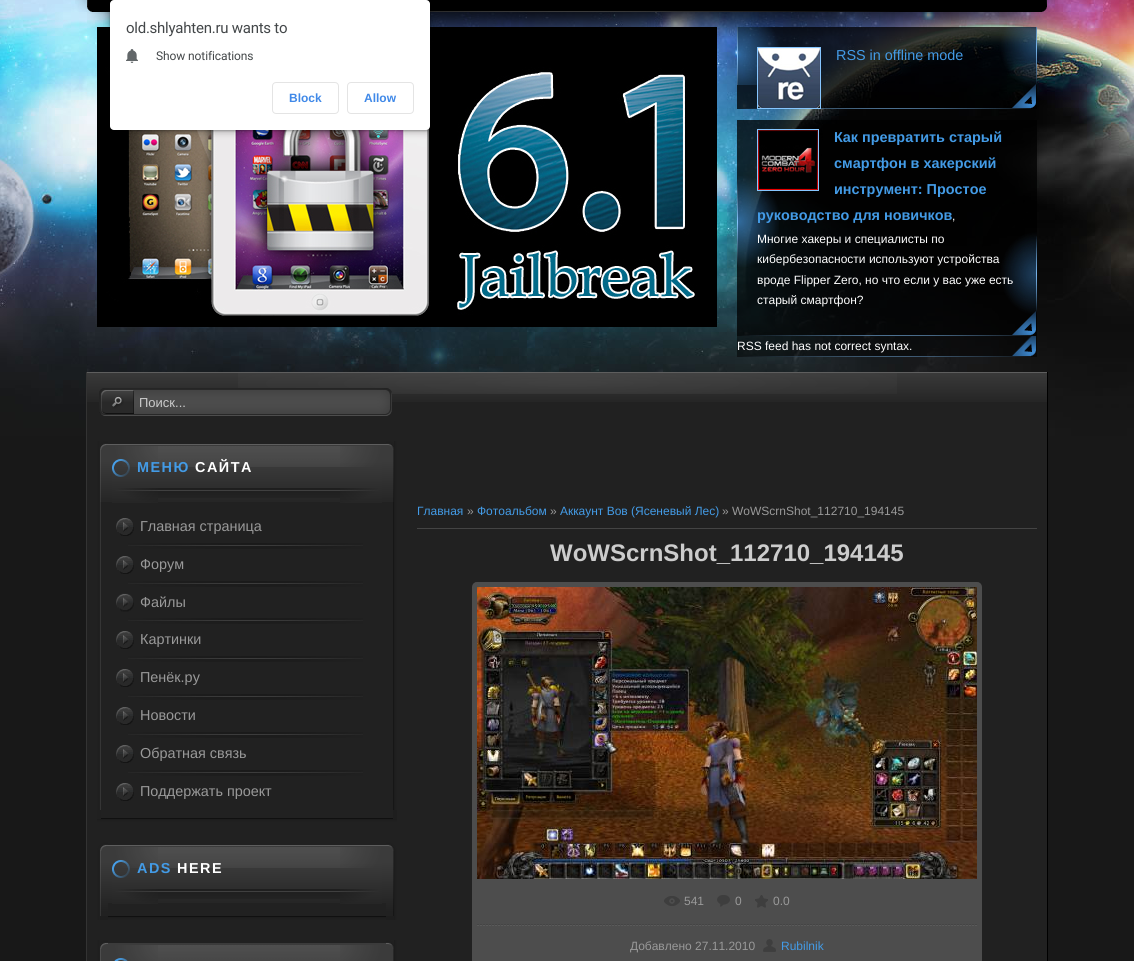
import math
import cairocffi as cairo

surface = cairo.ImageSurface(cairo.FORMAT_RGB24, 1134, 961)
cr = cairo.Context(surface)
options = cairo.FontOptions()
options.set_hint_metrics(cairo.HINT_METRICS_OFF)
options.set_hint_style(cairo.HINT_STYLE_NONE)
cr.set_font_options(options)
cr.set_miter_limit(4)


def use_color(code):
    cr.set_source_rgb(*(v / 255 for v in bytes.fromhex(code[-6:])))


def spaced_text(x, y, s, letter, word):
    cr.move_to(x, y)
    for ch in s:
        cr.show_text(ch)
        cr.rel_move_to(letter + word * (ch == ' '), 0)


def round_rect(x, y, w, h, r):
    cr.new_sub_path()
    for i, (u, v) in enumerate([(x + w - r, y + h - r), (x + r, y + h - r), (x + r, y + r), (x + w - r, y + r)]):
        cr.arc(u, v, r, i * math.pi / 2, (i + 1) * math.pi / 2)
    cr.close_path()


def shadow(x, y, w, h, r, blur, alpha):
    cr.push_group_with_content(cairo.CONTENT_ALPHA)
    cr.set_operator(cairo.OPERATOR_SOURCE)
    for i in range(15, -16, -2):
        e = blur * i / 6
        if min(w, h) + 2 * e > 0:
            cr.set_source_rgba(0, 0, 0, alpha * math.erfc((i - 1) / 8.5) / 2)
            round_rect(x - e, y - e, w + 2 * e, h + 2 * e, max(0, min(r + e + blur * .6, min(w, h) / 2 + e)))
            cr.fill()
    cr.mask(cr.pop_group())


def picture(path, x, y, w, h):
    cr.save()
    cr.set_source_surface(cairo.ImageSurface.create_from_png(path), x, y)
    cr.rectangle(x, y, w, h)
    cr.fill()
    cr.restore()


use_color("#181818")
cr.paint()
picture("img2.png", 0, 0, 1134, 436)
picture("img3.png", 75, 0, 983, 12)
picture("img4.png", 87, 12, 960, 27)
picture("img5.png", 97, 27, 620, 300)
use_color("#000000")
shadow(108, 0, 324, 134, 6, 3, 0.15)
shadow(110, 1, 320, 130, 4, 1, 0.3)
use_color("#ffffff")
round_rect(110, 0, 320, 130, 4)
cr.fill()
cr.select_font_face("Roboto")
cr.set_font_size(15)
use_color("#434749")
spaced_text(126, 33, "old.shlyahten.ru wants to", -0.25, 0)
picture("img1.png", 126, 49, 12, 14)
cr.set_font_size(12)
spaced_text(156, 60, "Show notifications", -0.1, 0)
round_rect(272.5, 82.5, 66, 31, 3.5)
use_color("#e4e4e4")
cr.set_line_width(1)
cr.stroke()
cr.select_font_face("Liberation Sans", cairo.FONT_SLANT_NORMAL, cairo.FONT_WEIGHT_BOLD)
use_color("#4089e8")
cr.move_to(289, 102)
cr.show_text("Block")
round_rect(347.5, 82.5, 66, 31, 3.5)
use_color("#e4e4e4")
cr.stroke()
use_color("#4089e8")
cr.move_to(364, 102)
cr.show_text("Allow")
picture("img6.png", 737, 27, 300, 82)
picture("img7.png", 737, 27, 300, 82)
picture("img8.png", 737, 27, 42, 58)
cr.rectangle(757.5, 47.5, 63, 61)
use_color("#86c6ff")
cr.stroke()
picture("img9.png", 758, 48, 62, 60)
cr.select_font_face("Liberation Sans")
cr.set_font_size(14.4)
use_color("#439be6")
cr.move_to(836, 60)
cr.show_text("RSS in offline mode")
picture("img10.png", 737, 120, 300, 216)
picture("img11.png", 737, 120, 300, 216)
picture("img12.png", 737, 176, 42, 91)
cr.rectangle(757.5, 129.5, 61, 61)
use_color("#86c6ff")
cr.stroke()
picture("img13.png", 758, 130, 60, 60)
cr.select_font_face("Liberation Sans", cairo.FONT_SLANT_NORMAL, cairo.FONT_WEIGHT_BOLD)
use_color("#439be6")
cr.move_to(834, 142)
cr.show_text("Как превратить старый")
cr.move_to(834, 168)
cr.show_text("смартфон в хакерский")
cr.move_to(834, 194)
cr.show_text("инструмент: Простое")
cr.move_to(757, 220)
cr.show_text("руководство для новичков")
cr.select_font_face("Liberation Sans")
cr.set_font_size(12)
use_color("#ffffff")
cr.move_to(952, 220)
cr.show_text(",")
cr.move_to(757, 243)
cr.show_text("Многие хакеры и специалисты по")
cr.move_to(757, 263)
cr.show_text("кибербезопасности используют устройства")
cr.move_to(757, 284)
cr.show_text("вроде Flipper Zero, но что если у вас уже есть")
cr.move_to(757, 304)
cr.show_text("старый смартфон?")
picture("img14.png", 737, 336, 300, 21)
cr.move_to(737, 350)
cr.show_text("RSS feed has not correct syntax.")
use_color("#212121")
cr.rectangle(87, 402, 960, 559)
cr.fill()
picture("img15.png", 87, 373, 960, 29)
use_color("#5e5e5e")
cr.rectangle(86, 372, 962, 1)
cr.fill()
use_color("#000000")
cr.rectangle(1047, 372, 1, 589)
cr.fill()
use_color("#333333")
cr.rectangle(86, 372, 1, 589)
cr.fill()
picture("img16.png", 238, 373, 659, 21)
picture("img17.png", 99, 388, 293, 28)
cr.set_font_size(13)
use_color("#cccccc")
cr.move_to(139, 407)
cr.show_text("Поиск...")
picture("img18.png", 108, 444, 278, 58)
picture("img19.png", 97, 441, 11, 369)
picture("img20.png", 386, 441, 11, 369)
picture("img21.png", 97, 810, 300, 12)
picture("img22.png", 100, 441, 8, 61)
picture("img23.png", 386, 441, 8, 61)
use_color("#202020")
cr.rectangle(97, 810, 4, 9)
cr.fill()
use_color("#1e1e1e")
cr.rectangle(393, 810, 4, 9)
cr.fill()
picture("img24.png", 158, 446, 182, 52)
picture("img25.png", 112, 446, 46, 57)
picture("img26.png", 340, 446, 42, 57)
picture("img27.png", 112, 459, 18, 18)
cr.select_font_face("Liberation Sans", cairo.FONT_SLANT_NORMAL, cairo.FONT_WEIGHT_BOLD)
cr.set_font_size(14.4)
use_color("#439be6")
spaced_text(137, 472, "МЕНЮ", 1.5, 0)
use_color("#ffffff")
spaced_text(195, 472, "САЙТА", 1.5, 0)
picture("img28.png", 116, 518, 18, 18)
cr.select_font_face("Liberation Sans")
use_color("#999999")
cr.move_to(140, 531)
cr.show_text("Главная страница")
picture("img29.png", 128, 543, 235, 6)
picture("img28.png", 116, 556, 18, 18)
cr.move_to(140, 569)
cr.show_text("Форум")
picture("img29.png", 128, 581, 235, 6)
picture("img30.png", 116, 593, 18, 19)
cr.move_to(140, 607)
cr.show_text("Файлы")
picture("img29.png", 128, 618, 235, 6)
picture("img28.png", 116, 631, 18, 18)
cr.move_to(140, 644)
cr.show_text("Картинки")
picture("img29.png", 128, 656, 235, 6)
picture("img28.png", 116, 669, 18, 18)
cr.move_to(140, 682)
cr.show_text("Пенёк.ру")
picture("img29.png", 128, 694, 235, 6)
picture("img28.png", 116, 707, 18, 18)
cr.move_to(140, 720)
cr.show_text("Новости")
picture("img29.png", 128, 732, 235, 6)
picture("img28.png", 116, 745, 18, 18)
cr.move_to(140, 758)
cr.show_text("Обратная связь")
picture("img29.png", 128, 770, 235, 6)
picture("img28.png", 116, 783, 18, 18)
cr.move_to(140, 796)
cr.show_text("Поддержать проект")
picture("img18.png", 108, 845, 278, 58)
picture("img31.png", 108, 908, 278, 12)
picture("img32.png", 97, 842, 11, 78)
picture("img33.png", 386, 842, 11, 78)
use_color("#1e1e1e")
cr.rectangle(100, 916, 8, 4)
cr.fill()
cr.rectangle(386, 916, 8, 4)
cr.fill()
picture("img24.png", 158, 847, 182, 52)
picture("img25.png", 112, 847, 46, 57)
picture("img26.png", 340, 847, 42, 57)
picture("img27.png", 112, 860, 18, 18)
cr.select_font_face("Liberation Sans", cairo.FONT_SLANT_NORMAL, cairo.FONT_WEIGHT_BOLD)
use_color("#439be6")
spaced_text(137, 873, "ADS", 1.5, 0)
use_color("#ffffff")
spaced_text(177, 873, "HERE", 1.5, 0)
use_color("#3b3b3b")
cr.rectangle(108, 943, 278, 18)
cr.fill()
picture("img34.png", 97, 940, 3, 21)
picture("img35.png", 394, 940, 3, 21)
picture("img36.png", 100, 940, 8, 21)
picture("img37.png", 386, 940, 8, 21)
picture("img38.png", 158, 945, 182, 16)
picture("img39.png", 112, 945, 46, 16)
picture("img40.png", 340, 945, 42, 16)
picture("img41.png", 114, 958, 14, 3)
cr.select_font_face("Liberation Sans")
cr.set_font_size(12)
use_color("#439be6")
cr.move_to(417, 515)
cr.show_text("Главная")
use_color("#999999")
cr.move_to(467, 515)
cr.show_text("»")
use_color("#439be6")
cr.move_to(477, 515)
cr.show_text("Фотоальбом")
use_color("#999999")
cr.move_to(550, 515)
cr.show_text("»")
use_color("#439be6")
cr.move_to(560, 515)
cr.show_text("Аккаунт Вов (Ясеневый Лес)")
use_color("#999999")
cr.move_to(722, 515)
cr.show_text("» WoWScrnShot_112710_194145")
use_color("#444444")
cr.rectangle(417, 528, 620, 1)
cr.fill()
cr.select_font_face("Liberation Sans", cairo.FONT_SLANT_NORMAL, cairo.FONT_WEIGHT_BOLD)
cr.set_font_size(24)
use_color("#cccccc")
cr.move_to(550, 561)
cr.show_text("WoWScrnShot_112710_194145")
picture("img42.png", 472, 582, 510, 379)
picture("img43.png", 477, 587, 500, 292)
picture("img44.png", 664, 896, 16, 10)
cr.select_font_face("Liberation Sans")
cr.set_font_size(12)
use_color("#999999")
cr.move_to(684, 905)
cr.show_text("541")
picture("img45.png", 717, 895, 13, 12)
cr.move_to(735, 905)
cr.show_text("0")
picture("img46.png", 755, 895, 13, 13)
cr.move_to(773, 905)
cr.show_text("0.0")
picture("img47.png", 477, 924, 500, 2)
cr.move_to(630, 950)
cr.show_text("Добавлено 27.11.2010")
picture("img48.png", 763, 939, 13, 13)
use_color("#439be6")
cr.move_to(781, 950)
cr.show_text("Rubilnik")
surface.write_to_png("result.png")
